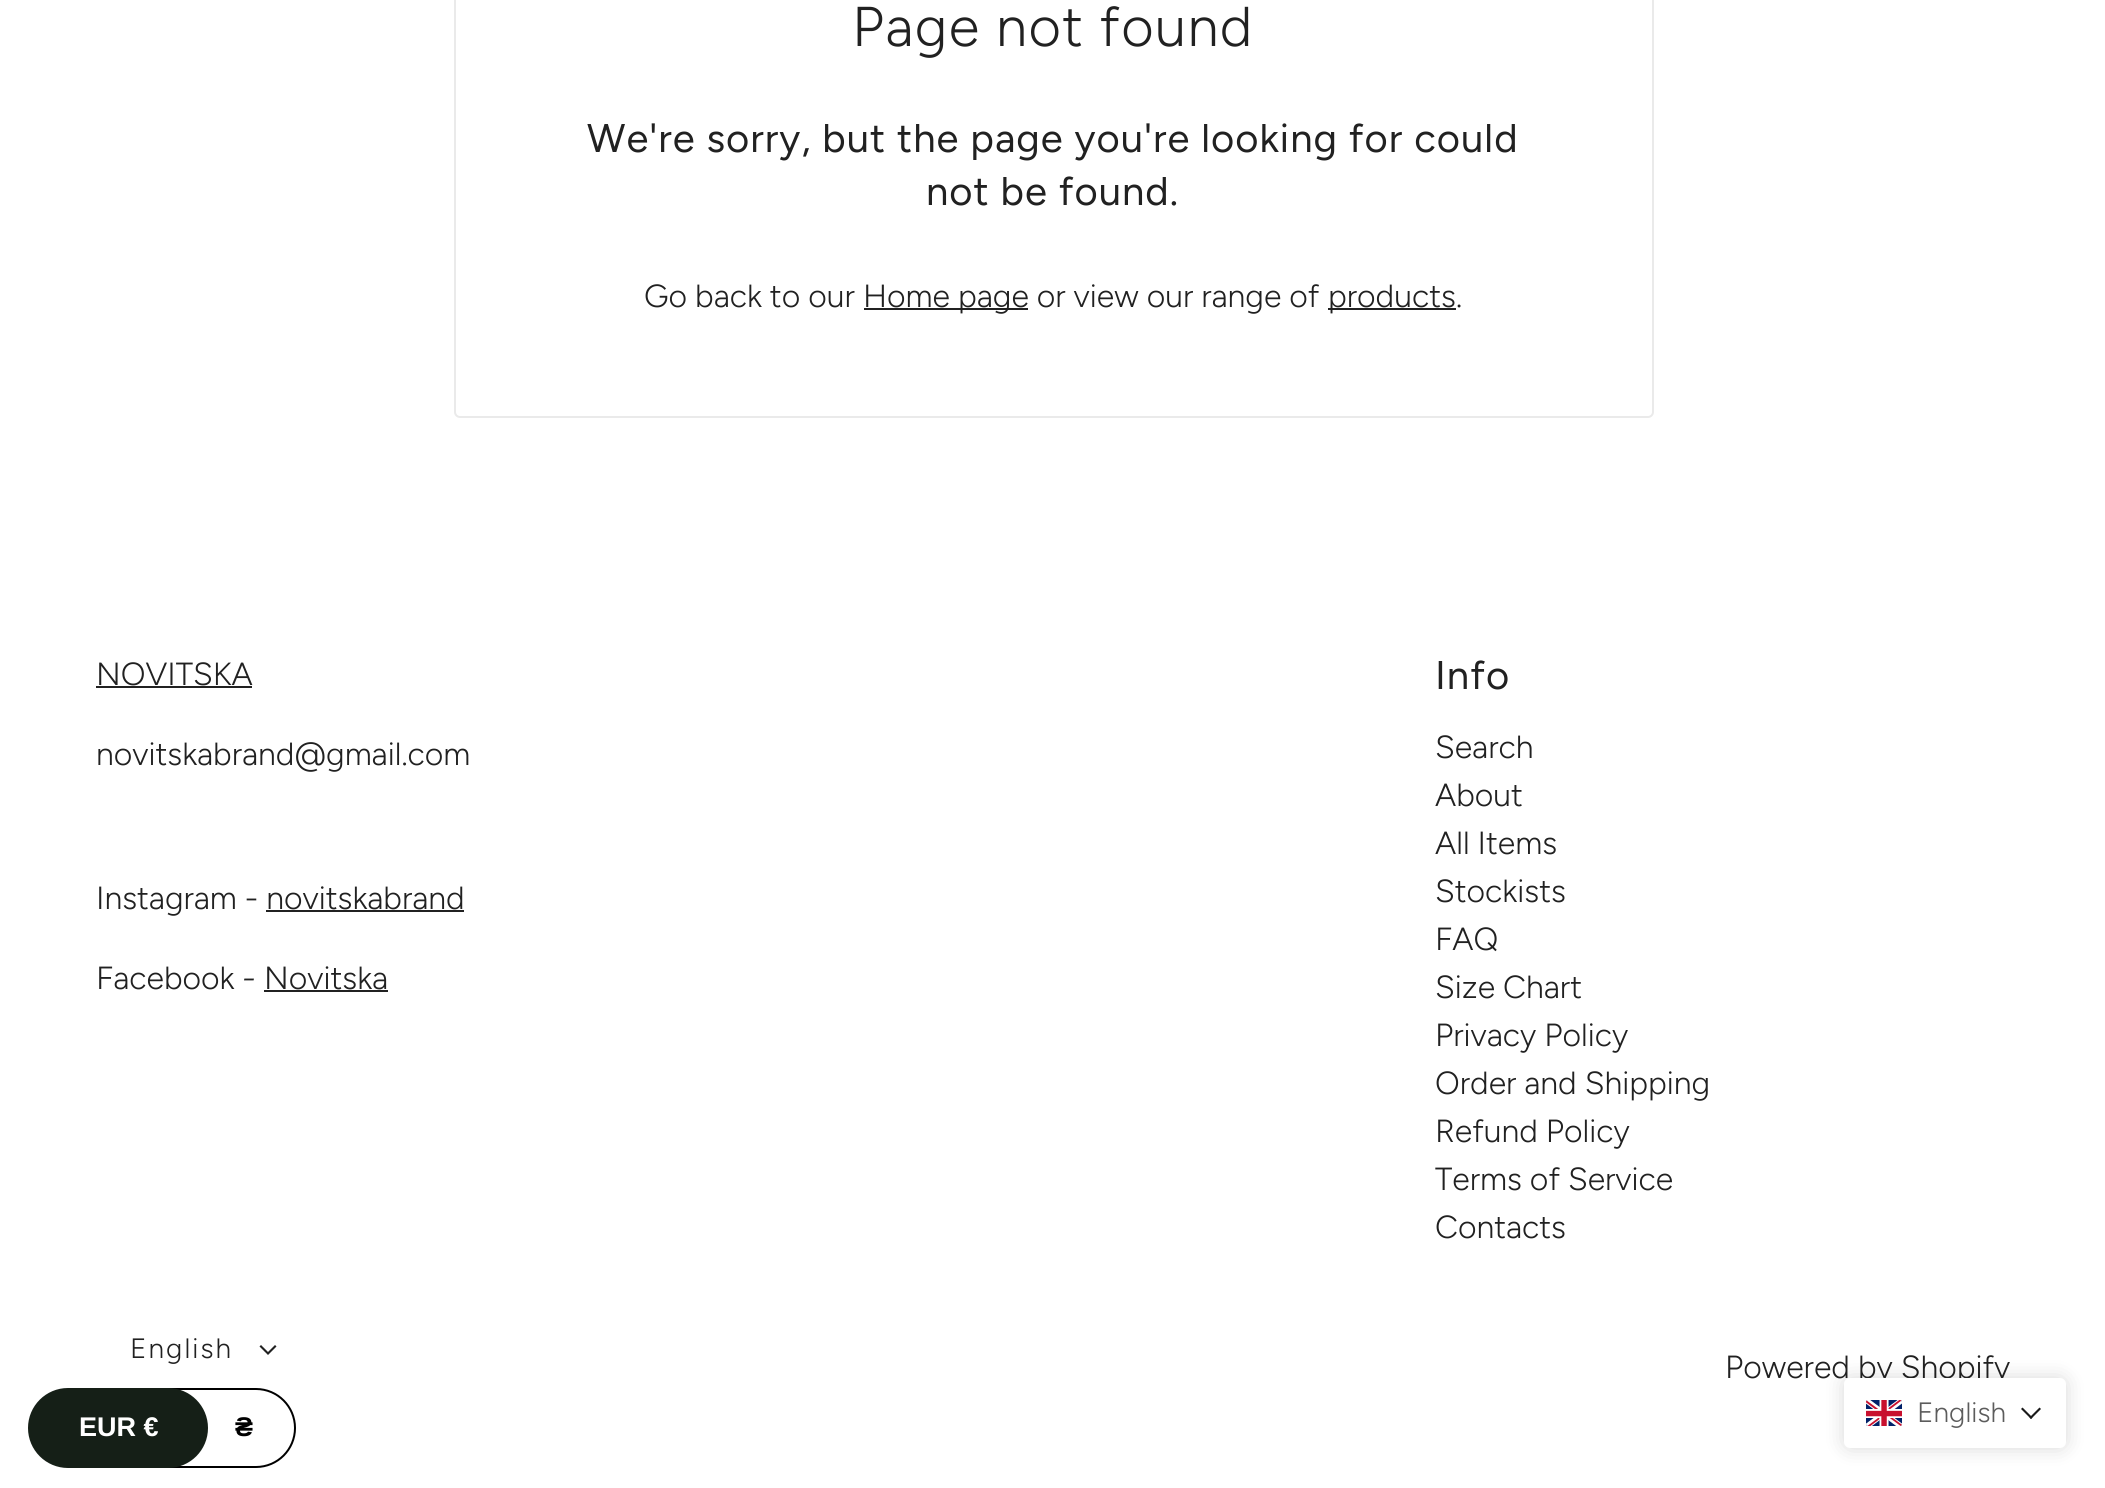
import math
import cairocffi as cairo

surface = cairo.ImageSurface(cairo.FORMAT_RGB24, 2105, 1488)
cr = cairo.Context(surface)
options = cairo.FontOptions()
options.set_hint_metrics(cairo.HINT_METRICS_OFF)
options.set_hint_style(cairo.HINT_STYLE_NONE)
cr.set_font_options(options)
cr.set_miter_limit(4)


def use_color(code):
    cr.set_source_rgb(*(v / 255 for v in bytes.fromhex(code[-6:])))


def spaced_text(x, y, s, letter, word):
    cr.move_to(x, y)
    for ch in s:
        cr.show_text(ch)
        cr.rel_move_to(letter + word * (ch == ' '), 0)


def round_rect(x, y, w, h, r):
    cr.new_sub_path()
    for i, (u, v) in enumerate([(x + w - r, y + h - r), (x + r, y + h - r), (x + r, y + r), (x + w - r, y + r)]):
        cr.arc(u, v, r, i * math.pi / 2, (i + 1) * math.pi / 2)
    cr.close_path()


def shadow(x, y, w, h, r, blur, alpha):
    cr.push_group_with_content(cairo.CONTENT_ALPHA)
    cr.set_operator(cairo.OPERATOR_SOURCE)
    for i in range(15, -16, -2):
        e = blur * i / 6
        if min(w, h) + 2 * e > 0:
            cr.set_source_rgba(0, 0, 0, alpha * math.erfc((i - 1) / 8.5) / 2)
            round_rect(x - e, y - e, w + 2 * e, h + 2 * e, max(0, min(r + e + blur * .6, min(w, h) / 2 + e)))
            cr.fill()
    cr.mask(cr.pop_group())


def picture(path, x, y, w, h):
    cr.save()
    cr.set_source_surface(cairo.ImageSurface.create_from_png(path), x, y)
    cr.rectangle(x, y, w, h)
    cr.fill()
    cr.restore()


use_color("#ffffff")
cr.paint()
round_rect(455, -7, 1198, 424, 5)
use_color("#eaeaea")
cr.stroke()
cr.select_font_face("Figtree Light")
cr.set_font_size(56)
use_color("#212121")
spaced_text(852, 46, "Page not found", 1.4, 0)
cr.select_font_face("Figtree")
cr.set_font_size(40)
spaced_text(587, 152, "We're sorry, but the page you're looking for could", 1, 0)
spaced_text(926, 205, "not be found.", 1, 0)
cr.select_font_face("Figtree Light")
cr.set_font_size(32)
cr.move_to(644, 307)
cr.show_text("Go back to our")
cr.rectangle(864, 308, 164, 2)
cr.fill()
cr.move_to(863, 307)
cr.show_text("Home page or view our range of")
cr.rectangle(1328, 308, 128, 2)
cr.fill()
cr.move_to(1328, 307)
cr.show_text("products.")
cr.move_to(96, 685)
cr.show_text("NOVITSKA")
cr.rectangle(96, 686, 156, 2)
cr.fill()
cr.move_to(96, 765)
cr.show_text("novitskabrand@gmail.com")
cr.move_to(96, 909)
cr.show_text("Instagram - novitskabrand")
cr.rectangle(266, 910, 198, 2)
cr.fill()
cr.move_to(96, 989)
cr.show_text("Facebook")
cr.select_font_face("Figtree Light", cairo.FONT_SLANT_ITALIC)
cr.move_to(242, 989)
cr.show_text("-")
cr.select_font_face("Figtree Light")
cr.move_to(264, 989)
cr.show_text("Novitska")
cr.rectangle(264, 990, 124, 2)
cr.fill()
cr.select_font_face("Figtree")
cr.set_font_size(40)
spaced_text(1435, 689, "Info", 1, 0)
cr.select_font_face("Figtree Light")
cr.set_font_size(32)
cr.move_to(1435, 758)
cr.show_text("Search")
cr.move_to(1435, 806)
cr.show_text("About")
cr.move_to(1435, 854)
cr.show_text("All Items")
cr.move_to(1435, 902)
cr.show_text("Stockists")
cr.move_to(1435, 950)
cr.show_text("FAQ")
cr.move_to(1435, 998)
cr.show_text("Size Chart")
cr.move_to(1435, 1046)
cr.show_text("Privacy Policy")
cr.move_to(1435, 1094)
cr.show_text("Order and Shipping")
cr.move_to(1435, 1142)
cr.show_text("Refund Policy")
cr.move_to(1435, 1190)
cr.show_text("Terms of Service")
cr.move_to(1435, 1238)
cr.show_text("Contacts")
cr.set_font_size(28)
spaced_text(130, 1358, "English", 2, 0)
cr.new_path()
cr.move_to(268, 1352)
cr.line_to(275, 1345)
cr.line_to(276.5, 1346.5)
cr.line_to(268, 1355)
cr.line_to(259.5, 1346.5)
cr.line_to(261, 1345)
cr.close_path()
cr.fill()
cr.set_font_size(32)
cr.move_to(1725, 1378)
cr.show_text("Powered by Shopify")
round_rect(117, 1389, 178, 78, 39)
use_color("#000000")
cr.stroke()
use_color("#151f17")
round_rect(29, 1389, 178, 78, 39)
cr.fill_preserve()
cr.stroke()
cr.select_font_face("Liberation Sans", cairo.FONT_SLANT_NORMAL, cairo.FONT_WEIGHT_BOLD)
cr.set_font_size(27)
use_color("#ffffff")
cr.move_to(79, 1436)
cr.show_text("EUR €")
use_color("#000000")
cr.move_to(235, 1436)
cr.show_text("₴")
use_color("#000000")
shadow(1844, 1378, 222, 70, 6, 10, 0.15)
use_color("#ffffff")
round_rect(1845, 1379, 220, 68, 5)
cr.fill_preserve()
cr.stroke()
picture("img1.png", 1866, 1400, 36, 26)
cr.select_font_face("Figtree Light")
cr.set_font_size(28)
use_color("#5c5c5c")
cr.move_to(1917, 1422)
cr.show_text("English")
use_color("#1a1a1a")
cr.new_path()
cr.move_to(2039.5, 1407.5)
cr.line_to(2041, 1409)
cr.line_to(2031, 1419)
cr.line_to(2029.5, 1417.5)
cr.close_path()
cr.fill()
cr.new_path()
cr.move_to(2022.5, 1407.5)
cr.line_to(2032.5, 1417.5)
cr.line_to(2031, 1419)
cr.line_to(2021, 1409)
cr.close_path()
cr.fill()
surface.write_to_png("result.png")
